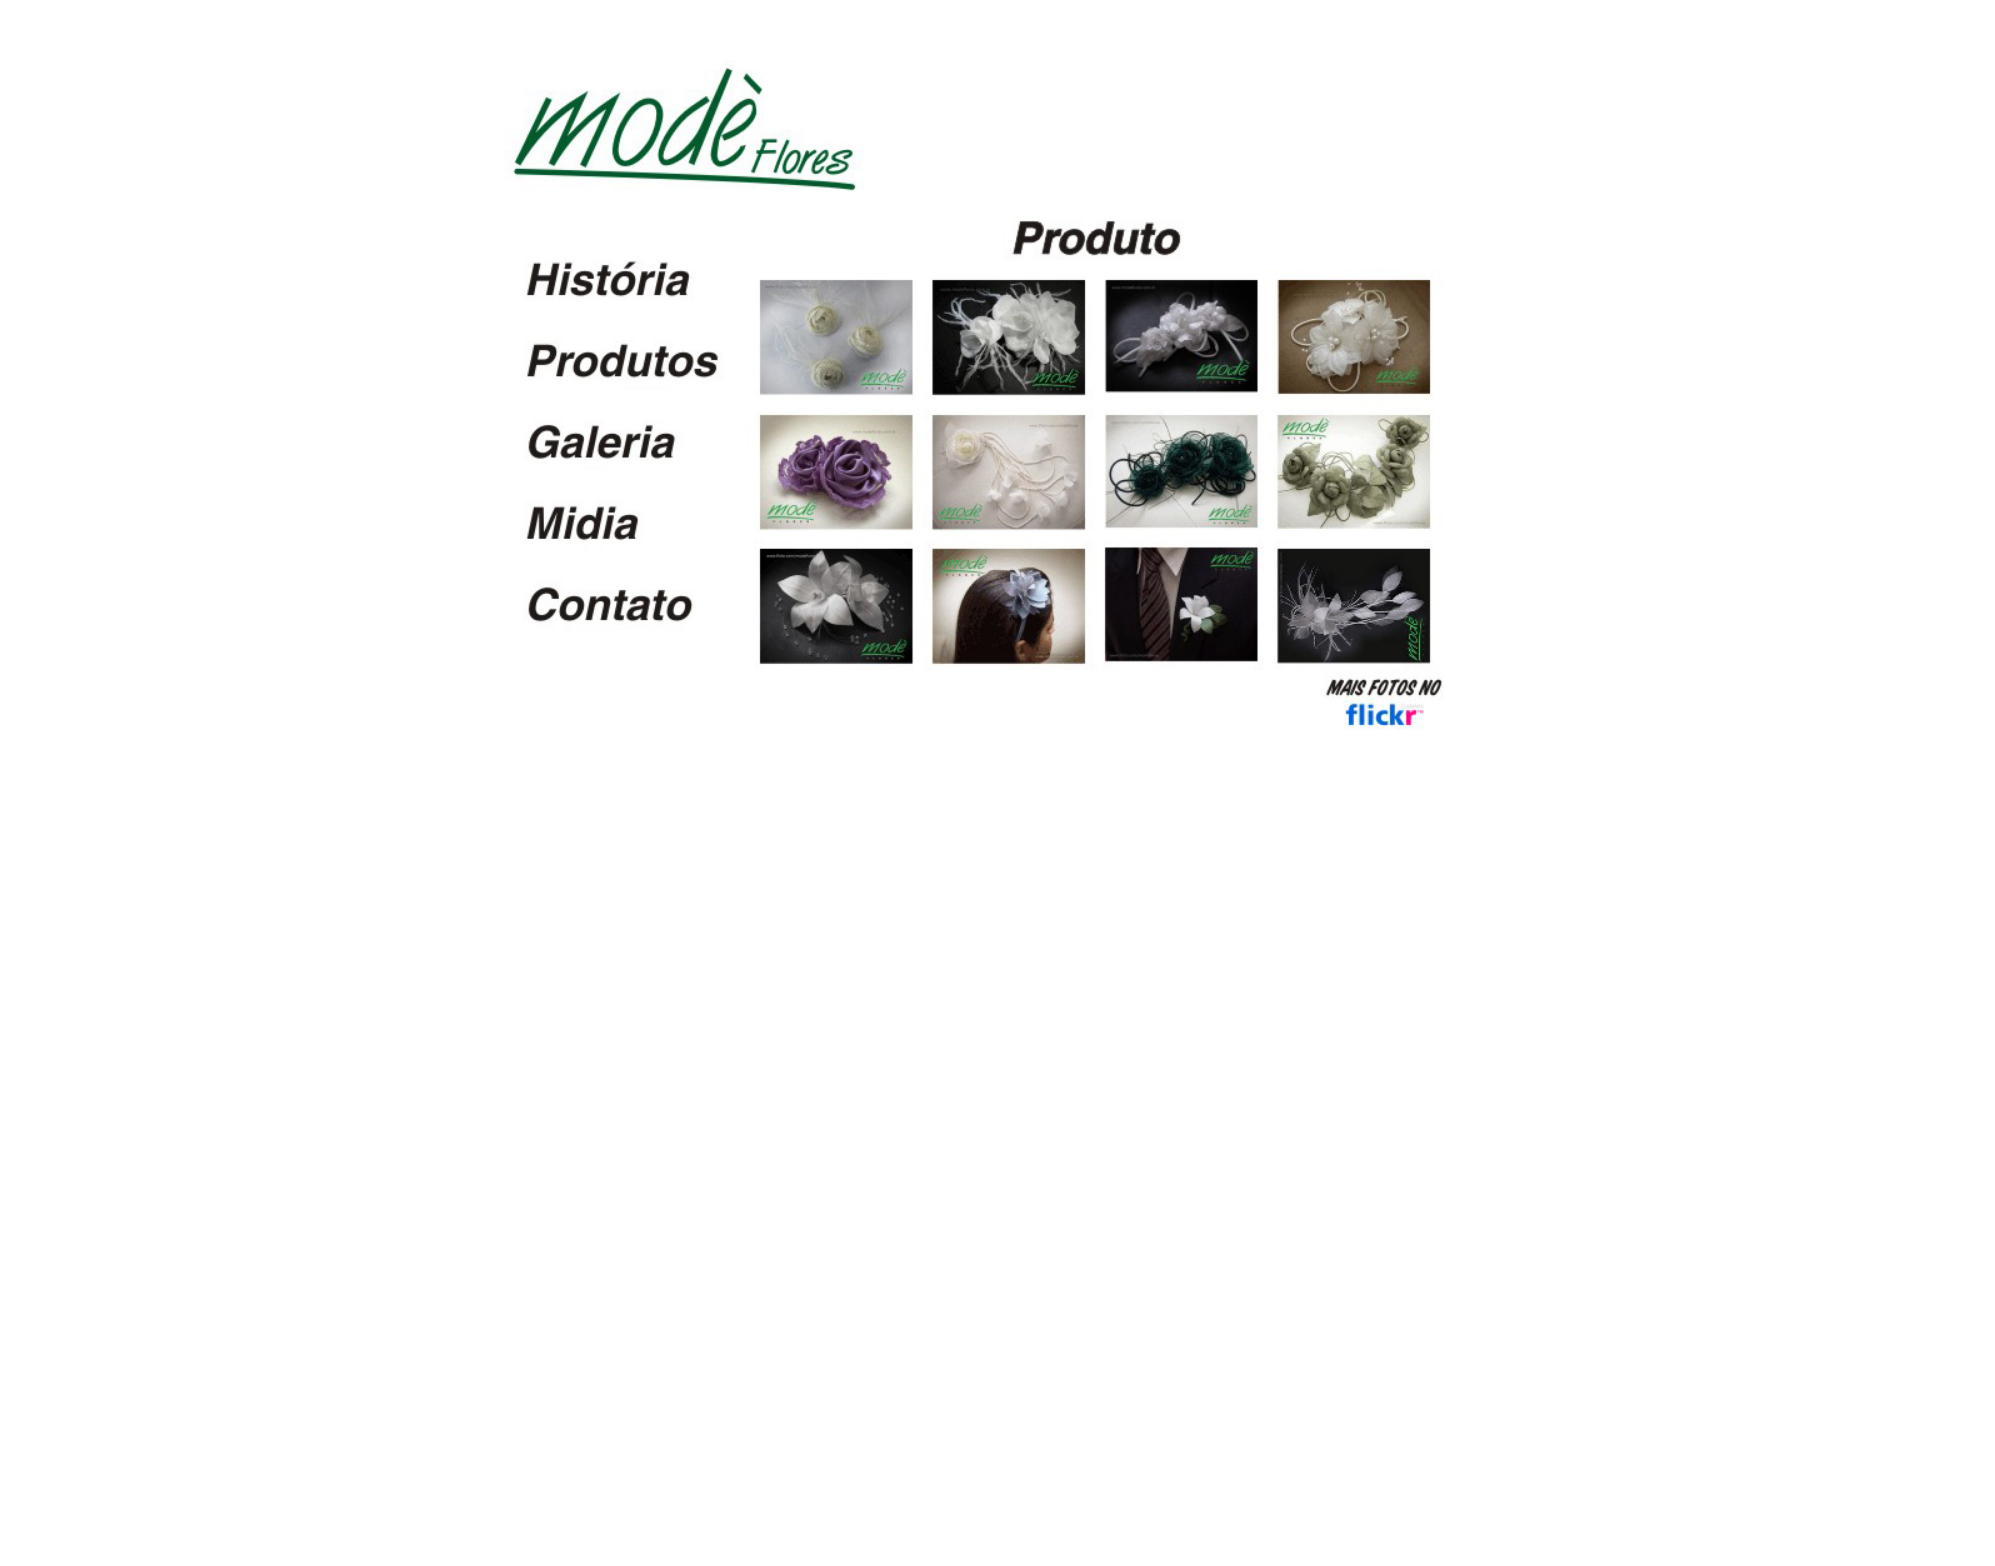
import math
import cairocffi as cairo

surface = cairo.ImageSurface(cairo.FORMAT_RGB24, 1995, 1566)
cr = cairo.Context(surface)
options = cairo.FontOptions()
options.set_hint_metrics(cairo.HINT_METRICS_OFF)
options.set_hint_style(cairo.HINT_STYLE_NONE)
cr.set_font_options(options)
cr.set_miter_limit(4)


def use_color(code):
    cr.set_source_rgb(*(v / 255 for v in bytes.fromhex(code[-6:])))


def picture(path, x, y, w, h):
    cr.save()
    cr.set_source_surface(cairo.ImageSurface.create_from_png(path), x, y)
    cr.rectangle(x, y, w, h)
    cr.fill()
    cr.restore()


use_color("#ffffff")
cr.paint()
picture("img1.png", 504, 60, 940, 670)
surface.write_to_png("result.png")
